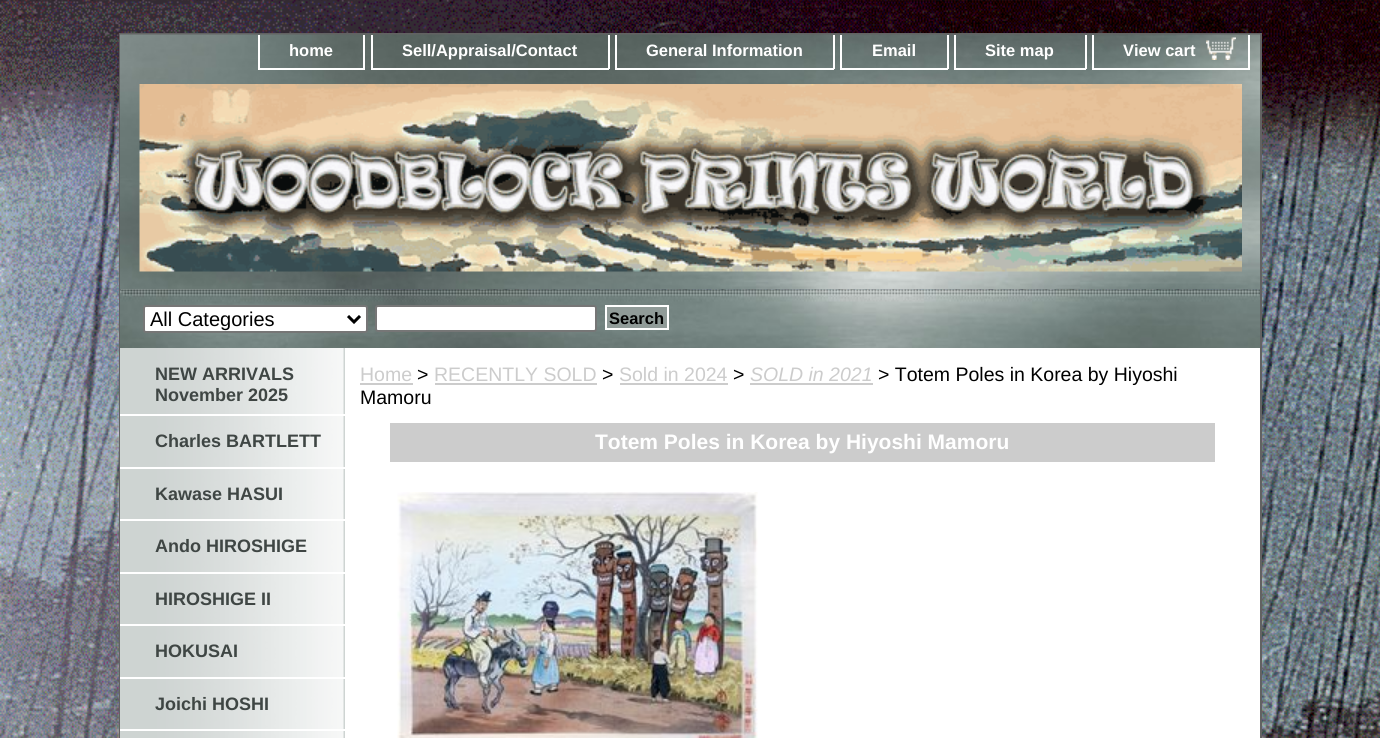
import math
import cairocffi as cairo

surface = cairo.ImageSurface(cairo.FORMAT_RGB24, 1380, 738)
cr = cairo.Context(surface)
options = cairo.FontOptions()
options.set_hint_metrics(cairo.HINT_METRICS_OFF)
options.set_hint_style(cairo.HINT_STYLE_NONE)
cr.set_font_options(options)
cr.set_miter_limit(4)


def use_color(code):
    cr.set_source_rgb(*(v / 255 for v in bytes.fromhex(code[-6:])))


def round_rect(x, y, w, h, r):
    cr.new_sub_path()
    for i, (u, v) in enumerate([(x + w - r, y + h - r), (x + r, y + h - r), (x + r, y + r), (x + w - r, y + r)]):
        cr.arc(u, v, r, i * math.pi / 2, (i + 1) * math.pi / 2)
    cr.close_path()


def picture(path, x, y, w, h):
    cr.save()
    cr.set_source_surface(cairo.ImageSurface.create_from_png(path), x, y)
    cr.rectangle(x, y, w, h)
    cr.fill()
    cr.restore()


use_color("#ffffff")
cr.paint()
picture("img1.png", 0, 0, 1380, 738)
picture("img2.png", 121, 289, 224, 1)
cr.rectangle(120, 34, 1141, 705)
use_color("#626262")
cr.stroke()
picture("img3.png", 120, 34, 1140, 256)
use_color("#ffffff")
cr.rectangle(363, 35, 2, 34)
cr.fill()
cr.rectangle(258, 68, 107, 2)
cr.fill()
cr.rectangle(258, 35, 2, 34)
cr.fill()
cr.select_font_face("Liberation Sans", cairo.FONT_SLANT_NORMAL, cairo.FONT_WEIGHT_BOLD)
cr.set_font_size(16.5)
cr.move_to(289, 56)
cr.show_text("home")
cr.rectangle(608, 35, 2, 34)
cr.fill()
cr.rectangle(371, 68, 238, 2)
cr.fill()
cr.rectangle(371, 35, 2, 34)
cr.fill()
cr.move_to(402, 56)
cr.show_text("Sell/Appraisal/Contact")
cr.rectangle(833, 35, 2, 34)
cr.fill()
cr.rectangle(615, 68, 219, 2)
cr.fill()
cr.rectangle(615, 35, 2, 34)
cr.fill()
cr.move_to(646, 56)
cr.show_text("General Information")
cr.rectangle(947, 35, 2, 34)
cr.fill()
cr.rectangle(840, 68, 108, 2)
cr.fill()
cr.rectangle(840, 35, 2, 34)
cr.fill()
cr.move_to(872, 56)
cr.show_text("Email")
cr.rectangle(1085, 35, 2, 34)
cr.fill()
cr.rectangle(954, 68, 132, 2)
cr.fill()
cr.rectangle(954, 35, 2, 34)
cr.fill()
cr.move_to(985, 56)
cr.show_text("Site map")
cr.rectangle(1248, 35, 2, 34)
cr.fill()
cr.rectangle(1092, 68, 158, 2)
cr.fill()
cr.rectangle(1092, 35, 2, 34)
cr.fill()
picture("img4.png", 1206, 37, 30, 23)
cr.move_to(1123, 56)
cr.show_text("View cart")
picture("img5.png", 139, 84, 1103, 188)
picture("img6.png", 120, 289, 1140, 59)
round_rect(144, 306, 223, 26, 2)
cr.fill_preserve()
use_color("#767676")
cr.stroke()
cr.new_path()
cr.move_to(348, 316)
cr.line_to(354, 322)
cr.line_to(360, 316)
use_color("#000000")
cr.set_line_width(3)
cr.stroke()
cr.select_font_face("Liberation Sans")
cr.set_font_size(20)
cr.move_to(150, 326)
cr.show_text("All Categories")
use_color("#ffffff")
round_rect(376, 306, 220, 25, 2)
cr.fill_preserve()
use_color("#767676")
cr.set_line_width(2)
cr.stroke()
use_color("#909b98")
cr.rectangle(606, 306, 62, 23)
cr.fill_preserve()
use_color("#ffffff")
cr.stroke()
cr.select_font_face("Liberation Sans", cairo.FONT_SLANT_NORMAL, cairo.FONT_WEIGHT_BOLD)
cr.set_font_size(16.5)
use_color("#000000")
cr.move_to(609, 324)
cr.show_text("Search")
use_color("#ffffff")
cr.rectangle(345, 348, 915, 390)
cr.fill()
picture("img7.png", 120, 348, 225, 390)
cr.rectangle(120, 414, 225, 2)
cr.fill()
cr.set_font_size(18)
use_color("#3f4644")
cr.move_to(155, 380)
cr.show_text("NEW ARRIVALS")
cr.move_to(155, 401)
cr.show_text("November 2025")
use_color("#ffffff")
cr.rectangle(120, 467, 225, 2)
cr.fill()
use_color("#3f4644")
cr.move_to(155, 447)
cr.show_text("Charles BARTLETT")
use_color("#ffffff")
cr.rectangle(120, 519, 225, 2)
cr.fill()
use_color("#3f4644")
cr.move_to(155, 500)
cr.show_text("Kawase HASUI")
use_color("#ffffff")
cr.rectangle(120, 572, 225, 2)
cr.fill()
use_color("#3f4644")
cr.move_to(155, 552)
cr.show_text("Ando HIROSHIGE")
use_color("#ffffff")
cr.rectangle(120, 624, 225, 2)
cr.fill()
use_color("#3f4644")
cr.move_to(155, 605)
cr.show_text("HIROSHIGE II")
use_color("#ffffff")
cr.rectangle(120, 677, 225, 2)
cr.fill()
use_color("#3f4644")
cr.move_to(155, 657)
cr.show_text("HOKUSAI")
use_color("#ffffff")
cr.rectangle(120, 729, 225, 2)
cr.fill()
use_color("#3f4644")
cr.move_to(155, 710)
cr.show_text("Joichi HOSHI")
cr.select_font_face("Liberation Sans")
cr.set_font_size(19.5)
use_color("#cccccc")
cr.move_to(360, 381)
cr.show_text("Home")
cr.rectangle(360, 383, 53, 2)
cr.fill()
use_color("#000000")
cr.move_to(417, 381)
cr.show_text(">")
use_color("#cccccc")
cr.move_to(434, 381)
cr.show_text("RECENTLY SOLD")
cr.rectangle(435, 383, 162, 2)
cr.fill()
use_color("#000000")
cr.move_to(602, 381)
cr.show_text(">")
use_color("#cccccc")
cr.move_to(619, 381)
cr.show_text("Sold in 2024")
cr.rectangle(620, 383, 108, 2)
cr.fill()
use_color("#000000")
cr.move_to(733, 381)
cr.show_text(">")
cr.select_font_face("Liberation Sans", cairo.FONT_SLANT_ITALIC)
use_color("#cccccc")
cr.move_to(750, 381)
cr.show_text("SOLD in 2021")
cr.rectangle(750, 383, 123, 2)
cr.fill()
cr.select_font_face("Liberation Sans")
use_color("#000000")
cr.move_to(878, 381)
cr.show_text("> Totem Poles in Korea by Hiyoshi")
cr.move_to(360, 404)
cr.show_text("Mamoru")
use_color("#cccccc")
cr.rectangle(390, 423, 825, 39)
cr.fill()
cr.select_font_face("Liberation Sans", cairo.FONT_SLANT_NORMAL, cairo.FONT_WEIGHT_BOLD)
cr.set_font_size(21)
use_color("#ffffff")
cr.move_to(595, 449)
cr.show_text("Totem Poles in Korea by Hiyoshi Mamoru")
picture("img8.png", 397, 492, 361, 246)
surface.write_to_png("result.png")
